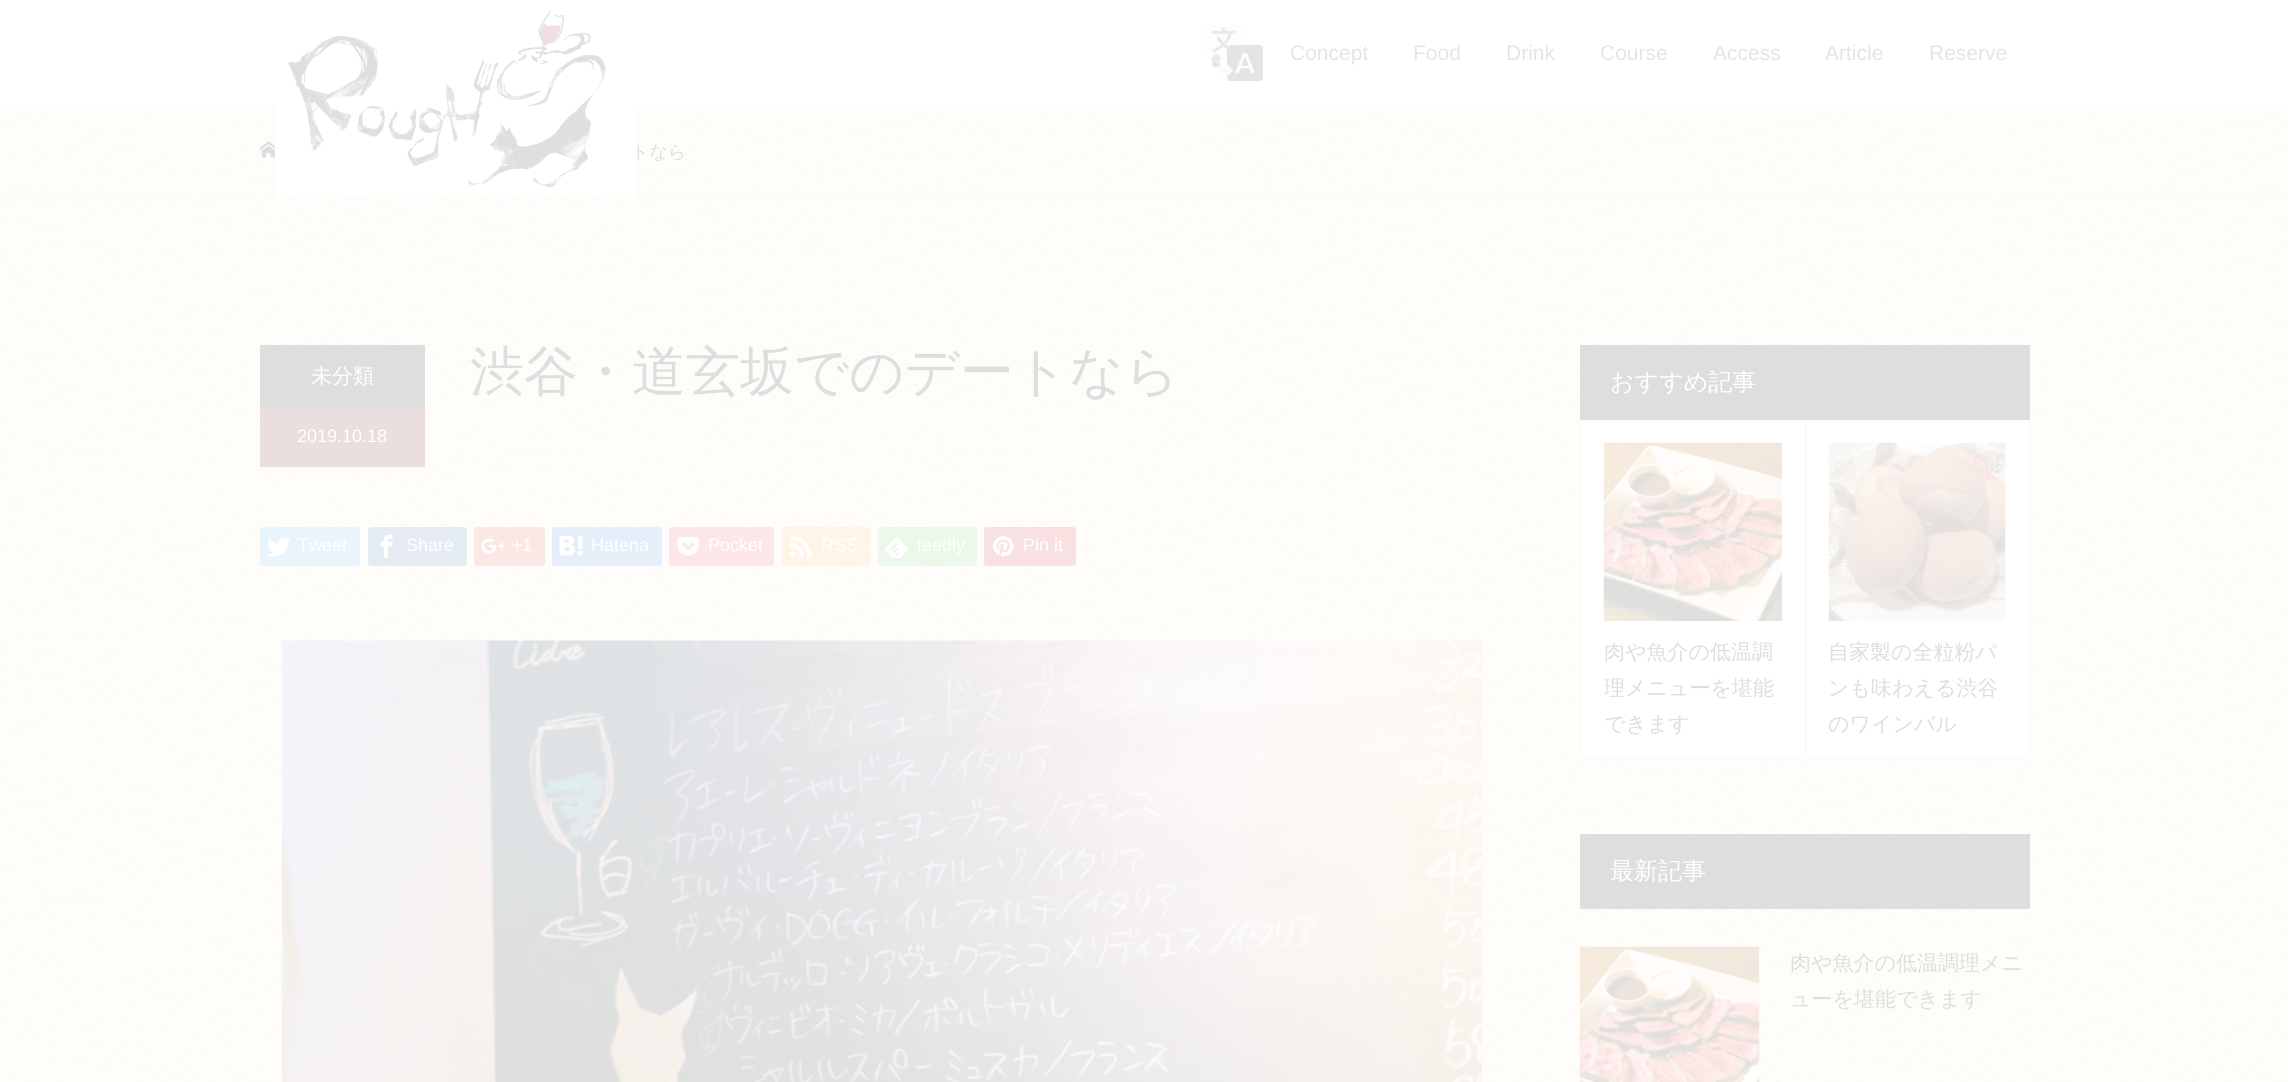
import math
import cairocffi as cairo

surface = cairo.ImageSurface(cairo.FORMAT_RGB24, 2288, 1082)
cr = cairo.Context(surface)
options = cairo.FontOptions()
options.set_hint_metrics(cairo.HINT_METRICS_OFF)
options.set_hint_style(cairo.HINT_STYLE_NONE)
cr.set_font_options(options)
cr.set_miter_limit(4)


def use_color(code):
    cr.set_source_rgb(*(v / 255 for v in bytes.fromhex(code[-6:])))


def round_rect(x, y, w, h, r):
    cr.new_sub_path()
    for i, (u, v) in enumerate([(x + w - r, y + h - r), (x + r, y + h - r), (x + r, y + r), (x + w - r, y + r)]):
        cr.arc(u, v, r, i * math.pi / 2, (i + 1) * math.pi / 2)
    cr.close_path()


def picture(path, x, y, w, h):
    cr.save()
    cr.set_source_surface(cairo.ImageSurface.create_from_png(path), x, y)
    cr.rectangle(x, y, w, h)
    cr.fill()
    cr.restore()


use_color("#ffffff")
cr.paint()
picture("img1.png", 0, 105, 2288, 977)
use_color("#fbfbfb")
cr.rectangle(0, 194, 2288, 2)
cr.fill()
use_color("#ffffff")
cr.rectangle(275, 105, 360, 93)
cr.fill()
picture("img2.png", 288, 10, 329, 180)
picture("img3.png", 1205, 23, 58, 59)
cr.select_font_face("Liberation Sans")
cr.set_font_size(21)
use_color("#e8e4e1")
cr.move_to(1290, 60)
cr.show_text("Concept")
cr.move_to(1413, 60)
cr.show_text("Food")
cr.move_to(1506, 60)
cr.show_text("Drink")
cr.move_to(1600, 60)
cr.show_text("Course")
cr.move_to(1713, 60)
cr.show_text("Access")
cr.move_to(1825, 60)
cr.show_text("Article")
cr.move_to(1929, 60)
cr.show_text("Reserve")
picture("img4.png", 260, 141, 15, 17)
cr.select_font_face("WenQuanYi Zen Hei Medium")
cr.set_font_size(18)
use_color("#dedede")
cr.move_to(631, 158)
cr.show_text("トなら")
cr.rectangle(260, 345, 165, 62)
cr.fill()
cr.set_font_size(21)
use_color("#ffffff")
cr.move_to(311, 383)
cr.show_text("未分類")
use_color("#ebdede")
cr.rectangle(260, 407, 165, 60)
cr.fill()
cr.select_font_face("Liberation Sans")
cr.set_font_size(18)
use_color("#ffffff")
cr.move_to(297, 442)
cr.show_text("2019.10.18")
cr.select_font_face("WenQuanYi Zen Hei Medium")
cr.set_font_size(54)
use_color("#dedede")
cr.move_to(470, 390)
cr.show_text("渋谷・道玄坂でのデートなら")
use_color("#e9f4fd")
round_rect(260, 527, 100, 39, 3)
cr.fill()
picture("img5.png", 267, 537, 24, 20)
cr.select_font_face("Liberation Sans")
cr.set_font_size(18)
use_color("#ffffff")
cr.move_to(298, 551)
cr.show_text("Tweet")
use_color("#e5ebf2")
round_rect(368, 527, 99, 39, 3)
cr.fill()
picture("img6.png", 380, 534, 13, 24)
use_color("#ffffff")
cr.move_to(406, 551)
cr.show_text("Share")
use_color("#fbe8e5")
round_rect(474, 527, 71, 39, 3)
cr.fill()
picture("img7.png", 481, 538, 24, 16)
use_color("#ffffff")
cr.move_to(512, 551)
cr.show_text("+1")
use_color("#e6eef9")
round_rect(552, 527, 110, 39, 3)
cr.fill()
picture("img8.png", 559, 535, 24, 21)
use_color("#ffffff")
cr.move_to(591, 551)
cr.show_text("Hatena")
use_color("#fde6e9")
round_rect(669, 527, 105, 39, 3)
cr.fill()
picture("img9.png", 677, 536, 22, 20)
use_color("#ffffff")
cr.move_to(708, 551)
cr.show_text("Pocket")
use_color("#fff5e6")
round_rect(782, 527, 88, 39, 3)
cr.fill()
picture("img10.png", 789, 535, 23, 23)
use_color("#ffffff")
cr.move_to(821, 551)
cr.show_text("RSS")
use_color("#ecf8e9")
round_rect(878, 527, 99, 39, 3)
cr.fill()
picture("img11.png", 885, 537, 24, 21)
use_color("#ffffff")
cr.move_to(917, 551)
cr.show_text("feedly")
use_color("#f9e0e1")
round_rect(984, 527, 92, 39, 3)
cr.fill()
picture("img12.png", 993, 536, 21, 21)
use_color("#ffffff")
cr.move_to(1023, 551)
cr.show_text("Pin it")
picture("img13.png", 282, 640, 1200, 442)
cr.rectangle(1581, 420, 224, 338)
cr.fill_preserve()
use_color("#fbfbfb")
cr.stroke()
use_color("#ffffff")
cr.rectangle(1806, 420, 223, 338)
cr.fill_preserve()
use_color("#fbfbfb")
cr.stroke()
use_color("#dedede")
cr.rectangle(1580, 345, 450, 75)
cr.fill()
cr.select_font_face("WenQuanYi Zen Hei Medium")
cr.set_font_size(24)
use_color("#ffffff")
cr.move_to(1610, 390)
cr.show_text("おすすめ記事")
picture("img14.png", 1603, 442, 179, 179)
cr.set_font_size(21)
use_color("#dedede")
cr.move_to(1604, 659)
cr.show_text("肉や魚介の低温調")
cr.move_to(1604, 695)
cr.show_text("理メニューを堪能")
cr.move_to(1604, 731)
cr.show_text("できます")
picture("img15.png", 1828, 442, 178, 179)
cr.move_to(1828, 659)
cr.show_text("自家製の全粒粉パ")
cr.move_to(1828, 695)
cr.show_text("ンも味わえる渋谷")
cr.move_to(1828, 731)
cr.show_text("のワインバル")
cr.rectangle(1580, 834, 450, 75)
cr.fill()
cr.set_font_size(24)
use_color("#ffffff")
cr.move_to(1610, 879)
cr.show_text("最新記事")
picture("img16.png", 1579, 946, 181, 136)
cr.set_font_size(21)
use_color("#dedede")
cr.move_to(1790, 970)
cr.show_text("肉や魚介の低温調理メニ")
cr.move_to(1790, 1006)
cr.show_text("ューを堪能できます")
surface.write_to_png("result.png")
